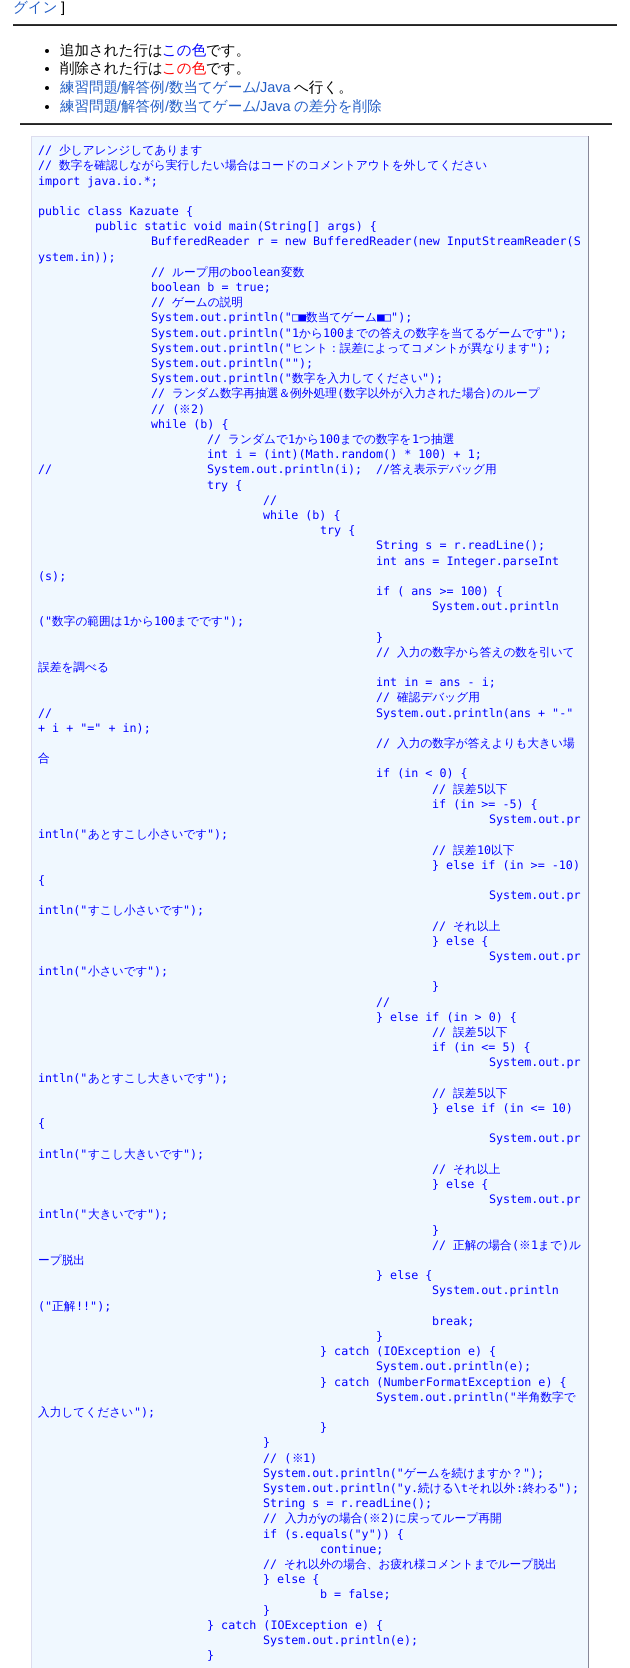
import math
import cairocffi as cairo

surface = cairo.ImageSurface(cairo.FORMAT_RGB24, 630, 1668)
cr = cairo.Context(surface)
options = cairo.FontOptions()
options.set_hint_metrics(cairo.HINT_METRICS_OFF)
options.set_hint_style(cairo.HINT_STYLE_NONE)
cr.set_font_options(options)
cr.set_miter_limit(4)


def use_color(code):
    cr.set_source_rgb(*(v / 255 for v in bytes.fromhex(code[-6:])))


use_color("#ffffff")
cr.paint()
cr.select_font_face("WenQuanYi Zen Hei Medium")
cr.set_font_size(14.5)
use_color("#215dc6")
cr.move_to(13, 12)
cr.show_text("グイン")
cr.select_font_face("Liberation Sans")
use_color("#000000")
cr.move_to(61, 12)
cr.show_text("]")
use_color("#333333")
cr.rectangle(13, 24, 604, 1)
cr.fill()
use_color("#222222")
cr.rectangle(13, 25, 604, 1)
cr.fill()
use_color("#000000")
cr.arc(47, 51, 2, 0, 2 * math.pi)
cr.fill()
cr.select_font_face("WenQuanYi Zen Hei Medium")
cr.move_to(60, 55)
cr.show_text("追加された行は")
use_color("#0000ff")
cr.move_to(162, 55)
cr.show_text("この色")
use_color("#000000")
cr.move_to(206, 55)
cr.show_text("です。")
cr.new_path()
cr.arc(47, 69, 2, 0, 2 * math.pi)
cr.fill()
cr.move_to(60, 73)
cr.show_text("削除された行は")
use_color("#ff0000")
cr.move_to(162, 73)
cr.show_text("この色")
use_color("#000000")
cr.move_to(206, 73)
cr.show_text("です。")
cr.new_path()
cr.arc(47, 88, 2, 0, 2 * math.pi)
cr.fill()
use_color("#215dc6")
cr.move_to(60, 92)
cr.show_text("練習問題")
cr.select_font_face("Liberation Sans")
cr.move_to(117, 92)
cr.show_text("/")
cr.select_font_face("WenQuanYi Zen Hei Medium")
cr.move_to(121, 92)
cr.show_text("解答例")
cr.select_font_face("Liberation Sans")
cr.move_to(165, 92)
cr.show_text("/")
cr.select_font_face("WenQuanYi Zen Hei Medium")
cr.move_to(169, 92)
cr.show_text("数当てゲーム")
cr.select_font_face("Liberation Sans")
cr.move_to(256, 92)
cr.show_text("/Java")
cr.select_font_face("WenQuanYi Zen Hei Medium")
use_color("#000000")
cr.move_to(294, 92)
cr.show_text("へ行く。")
cr.new_path()
cr.arc(47, 107, 2, 0, 2 * math.pi)
cr.fill()
use_color("#215dc6")
cr.move_to(60, 111)
cr.show_text("練習問題")
cr.select_font_face("Liberation Sans")
cr.move_to(117, 111)
cr.show_text("/")
cr.select_font_face("WenQuanYi Zen Hei Medium")
cr.move_to(121, 111)
cr.show_text("解答例")
cr.select_font_face("Liberation Sans")
cr.move_to(165, 111)
cr.show_text("/")
cr.select_font_face("WenQuanYi Zen Hei Medium")
cr.move_to(169, 111)
cr.show_text("数当てゲーム")
cr.select_font_face("Liberation Sans")
cr.move_to(256, 111)
cr.show_text("/Java")
cr.select_font_face("WenQuanYi Zen Hei Medium")
cr.move_to(294, 111)
cr.show_text("の差分を削除")
use_color("#333333")
cr.rectangle(20, 123, 592, 1)
cr.fill()
use_color("#222222")
cr.rectangle(20, 124, 592, 1)
cr.fill()
use_color("#f0f8ff")
cr.rectangle(32, 137, 556, 1531)
cr.fill()
use_color("#ddddee")
cr.rectangle(31, 136, 558, 1)
cr.fill()
use_color("#888899")
cr.rectangle(588, 136, 1, 1532)
cr.fill()
use_color("#ddddee")
cr.rectangle(31, 136, 1, 1532)
cr.fill()
cr.select_font_face("DejaVu Sans Mono")
cr.set_font_size(11.7)
use_color("#0000ff")
cr.move_to(38, 154)
cr.show_text("//")
cr.select_font_face("WenQuanYi Zen Hei Medium")
cr.move_to(59, 154)
cr.show_text("少しアレンジしてあります")
cr.select_font_face("DejaVu Sans Mono")
cr.move_to(38, 169)
cr.show_text("//")
cr.select_font_face("WenQuanYi Zen Hei Medium")
cr.move_to(59, 169)
cr.show_text("数字を確認しながら実行したい場合はコードのコメントアウトを外してください")
cr.select_font_face("DejaVu Sans Mono")
cr.move_to(38, 185)
cr.show_text("import java.io.*;")
cr.move_to(38, 215)
cr.show_text("public class Kazuate {")
cr.move_to(95, 230)
cr.show_text("public static void main(String[] args) {")
cr.move_to(151, 245)
cr.show_text("BufferedReader r = new BufferedReader(new InputStreamReader(S")
cr.move_to(38, 261)
cr.show_text("ystem.in));")
cr.move_to(151, 276)
cr.show_text("//")
cr.select_font_face("WenQuanYi Zen Hei Medium")
cr.move_to(172, 276)
cr.show_text("ループ用の")
cr.select_font_face("DejaVu Sans Mono")
cr.move_to(231, 276)
cr.show_text("boolean")
cr.select_font_face("WenQuanYi Zen Hei Medium")
cr.move_to(281, 276)
cr.show_text("変数")
cr.select_font_face("DejaVu Sans Mono")
cr.move_to(151, 291)
cr.show_text("boolean b = true;")
cr.move_to(151, 306)
cr.show_text("//")
cr.select_font_face("WenQuanYi Zen Hei Medium")
cr.move_to(172, 306)
cr.show_text("ゲームの説明")
cr.select_font_face("DejaVu Sans Mono")
cr.move_to(151, 321)
cr.show_text("System.out.println(\"□■")
cr.select_font_face("WenQuanYi Zen Hei Medium")
cr.move_to(306, 321)
cr.show_text("数当てゲーム")
cr.select_font_face("DejaVu Sans Mono")
cr.move_to(377, 321)
cr.show_text("■□\");")
cr.move_to(151, 337)
cr.show_text("System.out.println(\"1")
cr.select_font_face("WenQuanYi Zen Hei Medium")
cr.move_to(299, 337)
cr.show_text("から")
cr.select_font_face("DejaVu Sans Mono")
cr.move_to(323, 337)
cr.show_text("100")
cr.select_font_face("WenQuanYi Zen Hei Medium")
cr.move_to(344, 337)
cr.show_text("までの答えの数字を当てるゲームです")
cr.select_font_face("DejaVu Sans Mono")
cr.move_to(546, 337)
cr.show_text("\");")
cr.move_to(151, 352)
cr.show_text("System.out.println(\"")
cr.select_font_face("WenQuanYi Zen Hei Medium")
cr.move_to(292, 352)
cr.show_text("ヒント：誤差によってコメントが異なります")
cr.select_font_face("DejaVu Sans Mono")
cr.move_to(530, 352)
cr.show_text("\");")
cr.move_to(151, 367)
cr.show_text("System.out.println(\"\");")
cr.move_to(151, 382)
cr.show_text("System.out.println(\"")
cr.select_font_face("WenQuanYi Zen Hei Medium")
cr.move_to(292, 382)
cr.show_text("数字を入力してください")
cr.select_font_face("DejaVu Sans Mono")
cr.move_to(422, 382)
cr.show_text("\");")
cr.move_to(151, 397)
cr.show_text("//")
cr.select_font_face("WenQuanYi Zen Hei Medium")
cr.move_to(172, 397)
cr.show_text("ランダム数字再抽選＆例外処理")
cr.select_font_face("DejaVu Sans Mono")
cr.move_to(337, 397)
cr.show_text("(")
cr.select_font_face("WenQuanYi Zen Hei Medium")
cr.move_to(344, 397)
cr.show_text("数字以外が入力された場合")
cr.select_font_face("DejaVu Sans Mono")
cr.move_to(485, 397)
cr.show_text(")")
cr.select_font_face("WenQuanYi Zen Hei Medium")
cr.move_to(492, 397)
cr.show_text("のループ")
cr.select_font_face("DejaVu Sans Mono")
cr.move_to(151, 413)
cr.show_text("// (")
cr.select_font_face("WenQuanYi Zen Hei Medium")
cr.move_to(179, 413)
cr.show_text("※")
cr.select_font_face("DejaVu Sans Mono")
cr.move_to(191, 413)
cr.show_text("2)")
cr.move_to(151, 428)
cr.show_text("while (b) {")
cr.move_to(207, 443)
cr.show_text("//")
cr.select_font_face("WenQuanYi Zen Hei Medium")
cr.move_to(228, 443)
cr.show_text("ランダムで")
cr.select_font_face("DejaVu Sans Mono")
cr.move_to(288, 443)
cr.show_text("1")
cr.select_font_face("WenQuanYi Zen Hei Medium")
cr.move_to(295, 443)
cr.show_text("から")
cr.select_font_face("DejaVu Sans Mono")
cr.move_to(319, 443)
cr.show_text("100")
cr.select_font_face("WenQuanYi Zen Hei Medium")
cr.move_to(340, 443)
cr.show_text("までの数字を")
cr.select_font_face("DejaVu Sans Mono")
cr.move_to(412, 443)
cr.show_text("1")
cr.select_font_face("WenQuanYi Zen Hei Medium")
cr.move_to(419, 443)
cr.show_text("つ抽選")
cr.select_font_face("DejaVu Sans Mono")
cr.move_to(207, 458)
cr.show_text("int i = (int)(Math.random() * 100) + 1;")
cr.move_to(38, 473)
cr.show_text("//")
cr.move_to(207, 473)
cr.show_text("System.out.println(i);")
cr.move_to(376, 473)
cr.show_text("//")
cr.select_font_face("WenQuanYi Zen Hei Medium")
cr.move_to(390, 473)
cr.show_text("答え表示デバッグ用")
cr.select_font_face("DejaVu Sans Mono")
cr.move_to(207, 489)
cr.show_text("try {")
cr.move_to(263, 504)
cr.show_text("//")
cr.move_to(263, 519)
cr.show_text("while (b) {")
cr.move_to(320, 534)
cr.show_text("try {")
cr.move_to(376, 549)
cr.show_text("String s = r.readLine();")
cr.move_to(376, 565)
cr.show_text("int ans = Integer.parseInt")
cr.move_to(38, 580)
cr.show_text("(s);")
cr.move_to(376, 595)
cr.show_text("if ( ans >= 100) {")
cr.move_to(432, 610)
cr.show_text("System.out.println")
cr.move_to(38, 625)
cr.show_text("(\"")
cr.select_font_face("WenQuanYi Zen Hei Medium")
cr.move_to(52, 625)
cr.show_text("数字の範囲は")
cr.select_font_face("DejaVu Sans Mono")
cr.move_to(123, 625)
cr.show_text("1")
cr.select_font_face("WenQuanYi Zen Hei Medium")
cr.move_to(130, 625)
cr.show_text("から")
cr.select_font_face("DejaVu Sans Mono")
cr.move_to(154, 625)
cr.show_text("100")
cr.select_font_face("WenQuanYi Zen Hei Medium")
cr.move_to(175, 625)
cr.show_text("までです")
cr.select_font_face("DejaVu Sans Mono")
cr.move_to(223, 625)
cr.show_text("\");")
cr.move_to(376, 641)
cr.show_text("}")
cr.move_to(376, 656)
cr.show_text("//")
cr.select_font_face("WenQuanYi Zen Hei Medium")
cr.move_to(397, 656)
cr.show_text("入力の数字から答えの数を引いて")
cr.move_to(38, 671)
cr.show_text("誤差を調べる")
cr.select_font_face("DejaVu Sans Mono")
cr.move_to(376, 686)
cr.show_text("int in = ans - i;")
cr.move_to(376, 701)
cr.show_text("//")
cr.select_font_face("WenQuanYi Zen Hei Medium")
cr.move_to(397, 701)
cr.show_text("確認デバッグ用")
cr.select_font_face("DejaVu Sans Mono")
cr.move_to(38, 717)
cr.show_text("//")
cr.move_to(376, 717)
cr.show_text("System.out.println(ans + \"-\"")
cr.move_to(38, 732)
cr.show_text("+ i + \"=\" + in);")
cr.move_to(376, 747)
cr.show_text("//")
cr.select_font_face("WenQuanYi Zen Hei Medium")
cr.move_to(397, 747)
cr.show_text("入力の数字が答えよりも大きい場")
cr.move_to(38, 762)
cr.show_text("合")
cr.select_font_face("DejaVu Sans Mono")
cr.move_to(376, 777)
cr.show_text("if (in < 0) {")
cr.move_to(432, 793)
cr.show_text("//")
cr.select_font_face("WenQuanYi Zen Hei Medium")
cr.move_to(453, 793)
cr.show_text("誤差")
cr.select_font_face("DejaVu Sans Mono")
cr.move_to(477, 793)
cr.show_text("5")
cr.select_font_face("WenQuanYi Zen Hei Medium")
cr.move_to(484, 793)
cr.show_text("以下")
cr.select_font_face("DejaVu Sans Mono")
cr.move_to(432, 808)
cr.show_text("if (in >= -5) {")
cr.move_to(489, 823)
cr.show_text("System.out.pr")
cr.move_to(38, 838)
cr.show_text("intln(\"")
cr.select_font_face("WenQuanYi Zen Hei Medium")
cr.move_to(88, 838)
cr.show_text("あとすこし小さいです")
cr.select_font_face("DejaVu Sans Mono")
cr.move_to(207, 838)
cr.show_text("\");")
cr.move_to(432, 854)
cr.show_text("//")
cr.select_font_face("WenQuanYi Zen Hei Medium")
cr.move_to(453, 854)
cr.show_text("誤差")
cr.select_font_face("DejaVu Sans Mono")
cr.move_to(477, 854)
cr.show_text("10")
cr.select_font_face("WenQuanYi Zen Hei Medium")
cr.move_to(491, 854)
cr.show_text("以下")
cr.select_font_face("DejaVu Sans Mono")
cr.move_to(432, 869)
cr.show_text("} else if (in >= -10)")
cr.move_to(38, 884)
cr.show_text("{")
cr.move_to(489, 899)
cr.show_text("System.out.pr")
cr.move_to(38, 914)
cr.show_text("intln(\"")
cr.select_font_face("WenQuanYi Zen Hei Medium")
cr.move_to(88, 914)
cr.show_text("すこし小さいです")
cr.select_font_face("DejaVu Sans Mono")
cr.move_to(183, 914)
cr.show_text("\");")
cr.move_to(432, 930)
cr.show_text("//")
cr.select_font_face("WenQuanYi Zen Hei Medium")
cr.move_to(453, 930)
cr.show_text("それ以上")
cr.select_font_face("DejaVu Sans Mono")
cr.move_to(432, 945)
cr.show_text("} else {")
cr.move_to(489, 960)
cr.show_text("System.out.pr")
cr.move_to(38, 975)
cr.show_text("intln(\"")
cr.select_font_face("WenQuanYi Zen Hei Medium")
cr.move_to(88, 975)
cr.show_text("小さいです")
cr.select_font_face("DejaVu Sans Mono")
cr.move_to(147, 975)
cr.show_text("\");")
cr.move_to(432, 990)
cr.show_text("}")
cr.move_to(376, 1006)
cr.show_text("//")
cr.move_to(376, 1021)
cr.show_text("} else if (in > 0) {")
cr.move_to(432, 1036)
cr.show_text("//")
cr.select_font_face("WenQuanYi Zen Hei Medium")
cr.move_to(453, 1036)
cr.show_text("誤差")
cr.select_font_face("DejaVu Sans Mono")
cr.move_to(477, 1036)
cr.show_text("5")
cr.select_font_face("WenQuanYi Zen Hei Medium")
cr.move_to(484, 1036)
cr.show_text("以下")
cr.select_font_face("DejaVu Sans Mono")
cr.move_to(432, 1051)
cr.show_text("if (in <= 5) {")
cr.move_to(489, 1066)
cr.show_text("System.out.pr")
cr.move_to(38, 1082)
cr.show_text("intln(\"")
cr.select_font_face("WenQuanYi Zen Hei Medium")
cr.move_to(88, 1082)
cr.show_text("あとすこし大きいです")
cr.select_font_face("DejaVu Sans Mono")
cr.move_to(207, 1082)
cr.show_text("\");")
cr.move_to(432, 1097)
cr.show_text("//")
cr.select_font_face("WenQuanYi Zen Hei Medium")
cr.move_to(453, 1097)
cr.show_text("誤差")
cr.select_font_face("DejaVu Sans Mono")
cr.move_to(477, 1097)
cr.show_text("5")
cr.select_font_face("WenQuanYi Zen Hei Medium")
cr.move_to(484, 1097)
cr.show_text("以下")
cr.select_font_face("DejaVu Sans Mono")
cr.move_to(432, 1112)
cr.show_text("} else if (in <= 10)")
cr.move_to(38, 1127)
cr.show_text("{")
cr.move_to(489, 1142)
cr.show_text("System.out.pr")
cr.move_to(38, 1158)
cr.show_text("intln(\"")
cr.select_font_face("WenQuanYi Zen Hei Medium")
cr.move_to(88, 1158)
cr.show_text("すこし大きいです")
cr.select_font_face("DejaVu Sans Mono")
cr.move_to(183, 1158)
cr.show_text("\");")
cr.move_to(432, 1173)
cr.show_text("//")
cr.select_font_face("WenQuanYi Zen Hei Medium")
cr.move_to(453, 1173)
cr.show_text("それ以上")
cr.select_font_face("DejaVu Sans Mono")
cr.move_to(432, 1188)
cr.show_text("} else {")
cr.move_to(489, 1203)
cr.show_text("System.out.pr")
cr.move_to(38, 1218)
cr.show_text("intln(\"")
cr.select_font_face("WenQuanYi Zen Hei Medium")
cr.move_to(88, 1218)
cr.show_text("大きいです")
cr.select_font_face("DejaVu Sans Mono")
cr.move_to(147, 1218)
cr.show_text("\");")
cr.move_to(432, 1234)
cr.show_text("}")
cr.move_to(432, 1249)
cr.show_text("//")
cr.select_font_face("WenQuanYi Zen Hei Medium")
cr.move_to(453, 1249)
cr.show_text("正解の場合")
cr.select_font_face("DejaVu Sans Mono")
cr.move_to(512, 1249)
cr.show_text("(")
cr.select_font_face("WenQuanYi Zen Hei Medium")
cr.move_to(519, 1249)
cr.show_text("※")
cr.select_font_face("DejaVu Sans Mono")
cr.move_to(531, 1249)
cr.show_text("1")
cr.select_font_face("WenQuanYi Zen Hei Medium")
cr.move_to(538, 1249)
cr.show_text("まで")
cr.select_font_face("DejaVu Sans Mono")
cr.move_to(562, 1249)
cr.show_text(")")
cr.select_font_face("WenQuanYi Zen Hei Medium")
cr.move_to(569, 1249)
cr.show_text("ル")
cr.move_to(38, 1264)
cr.show_text("ープ脱出")
cr.select_font_face("DejaVu Sans Mono")
cr.move_to(376, 1279)
cr.show_text("} else {")
cr.move_to(432, 1294)
cr.show_text("System.out.println")
cr.move_to(38, 1310)
cr.show_text("(\"")
cr.select_font_face("WenQuanYi Zen Hei Medium")
cr.move_to(52, 1310)
cr.show_text("正解")
cr.select_font_face("DejaVu Sans Mono")
cr.move_to(76, 1310)
cr.show_text("!!\");")
cr.move_to(432, 1325)
cr.show_text("break;")
cr.move_to(376, 1340)
cr.show_text("}")
cr.move_to(320, 1355)
cr.show_text("} catch (IOException e) {")
cr.move_to(376, 1370)
cr.show_text("System.out.println(e);")
cr.move_to(320, 1386)
cr.show_text("} catch (NumberFormatException e) {")
cr.move_to(376, 1401)
cr.show_text("System.out.println(\"")
cr.select_font_face("WenQuanYi Zen Hei Medium")
cr.move_to(517, 1401)
cr.show_text("半角数字で")
cr.move_to(38, 1416)
cr.show_text("入力してください")
cr.select_font_face("DejaVu Sans Mono")
cr.move_to(134, 1416)
cr.show_text("\");")
cr.move_to(320, 1431)
cr.show_text("}")
cr.move_to(263, 1446)
cr.show_text("}")
cr.move_to(263, 1462)
cr.show_text("// (")
cr.select_font_face("WenQuanYi Zen Hei Medium")
cr.move_to(292, 1462)
cr.show_text("※")
cr.select_font_face("DejaVu Sans Mono")
cr.move_to(303, 1462)
cr.show_text("1)")
cr.move_to(263, 1477)
cr.show_text("System.out.println(\"")
cr.select_font_face("WenQuanYi Zen Hei Medium")
cr.move_to(404, 1477)
cr.show_text("ゲームを続けますか？")
cr.select_font_face("DejaVu Sans Mono")
cr.move_to(523, 1477)
cr.show_text("\");")
cr.move_to(263, 1492)
cr.show_text("System.out.println(\"y.")
cr.select_font_face("WenQuanYi Zen Hei Medium")
cr.move_to(418, 1492)
cr.show_text("続ける")
cr.select_font_face("DejaVu Sans Mono")
cr.move_to(454, 1492)
cr.show_text("\\t")
cr.select_font_face("WenQuanYi Zen Hei Medium")
cr.move_to(468, 1492)
cr.show_text("それ以外")
cr.select_font_face("DejaVu Sans Mono")
cr.move_to(516, 1492)
cr.show_text(":")
cr.select_font_face("WenQuanYi Zen Hei Medium")
cr.move_to(523, 1492)
cr.show_text("終わる")
cr.select_font_face("DejaVu Sans Mono")
cr.move_to(558, 1492)
cr.show_text("\");")
cr.move_to(263, 1507)
cr.show_text("String s = r.readLine();")
cr.move_to(263, 1522)
cr.show_text("//")
cr.select_font_face("WenQuanYi Zen Hei Medium")
cr.move_to(285, 1522)
cr.show_text("入力が")
cr.select_font_face("DejaVu Sans Mono")
cr.move_to(320, 1522)
cr.show_text("y")
cr.select_font_face("WenQuanYi Zen Hei Medium")
cr.move_to(327, 1522)
cr.show_text("の場合")
cr.select_font_face("DejaVu Sans Mono")
cr.move_to(362, 1522)
cr.show_text("(")
cr.select_font_face("WenQuanYi Zen Hei Medium")
cr.move_to(369, 1522)
cr.show_text("※")
cr.select_font_face("DejaVu Sans Mono")
cr.move_to(381, 1522)
cr.show_text("2)")
cr.select_font_face("WenQuanYi Zen Hei Medium")
cr.move_to(395, 1522)
cr.show_text("に戻ってループ再開")
cr.select_font_face("DejaVu Sans Mono")
cr.move_to(263, 1538)
cr.show_text("if (s.equals(\"y\")) {")
cr.move_to(320, 1553)
cr.show_text("continue;")
cr.move_to(263, 1568)
cr.show_text("//")
cr.select_font_face("WenQuanYi Zen Hei Medium")
cr.move_to(284, 1568)
cr.show_text("それ以外の場合、お疲れ様コメントまでループ脱出")
cr.select_font_face("DejaVu Sans Mono")
cr.move_to(263, 1583)
cr.show_text("} else {")
cr.move_to(320, 1598)
cr.show_text("b = false;")
cr.move_to(263, 1614)
cr.show_text("}")
cr.move_to(207, 1629)
cr.show_text("} catch (IOException e) {")
cr.move_to(263, 1644)
cr.show_text("System.out.println(e);")
cr.move_to(207, 1659)
cr.show_text("}")
surface.write_to_png("result.png")
